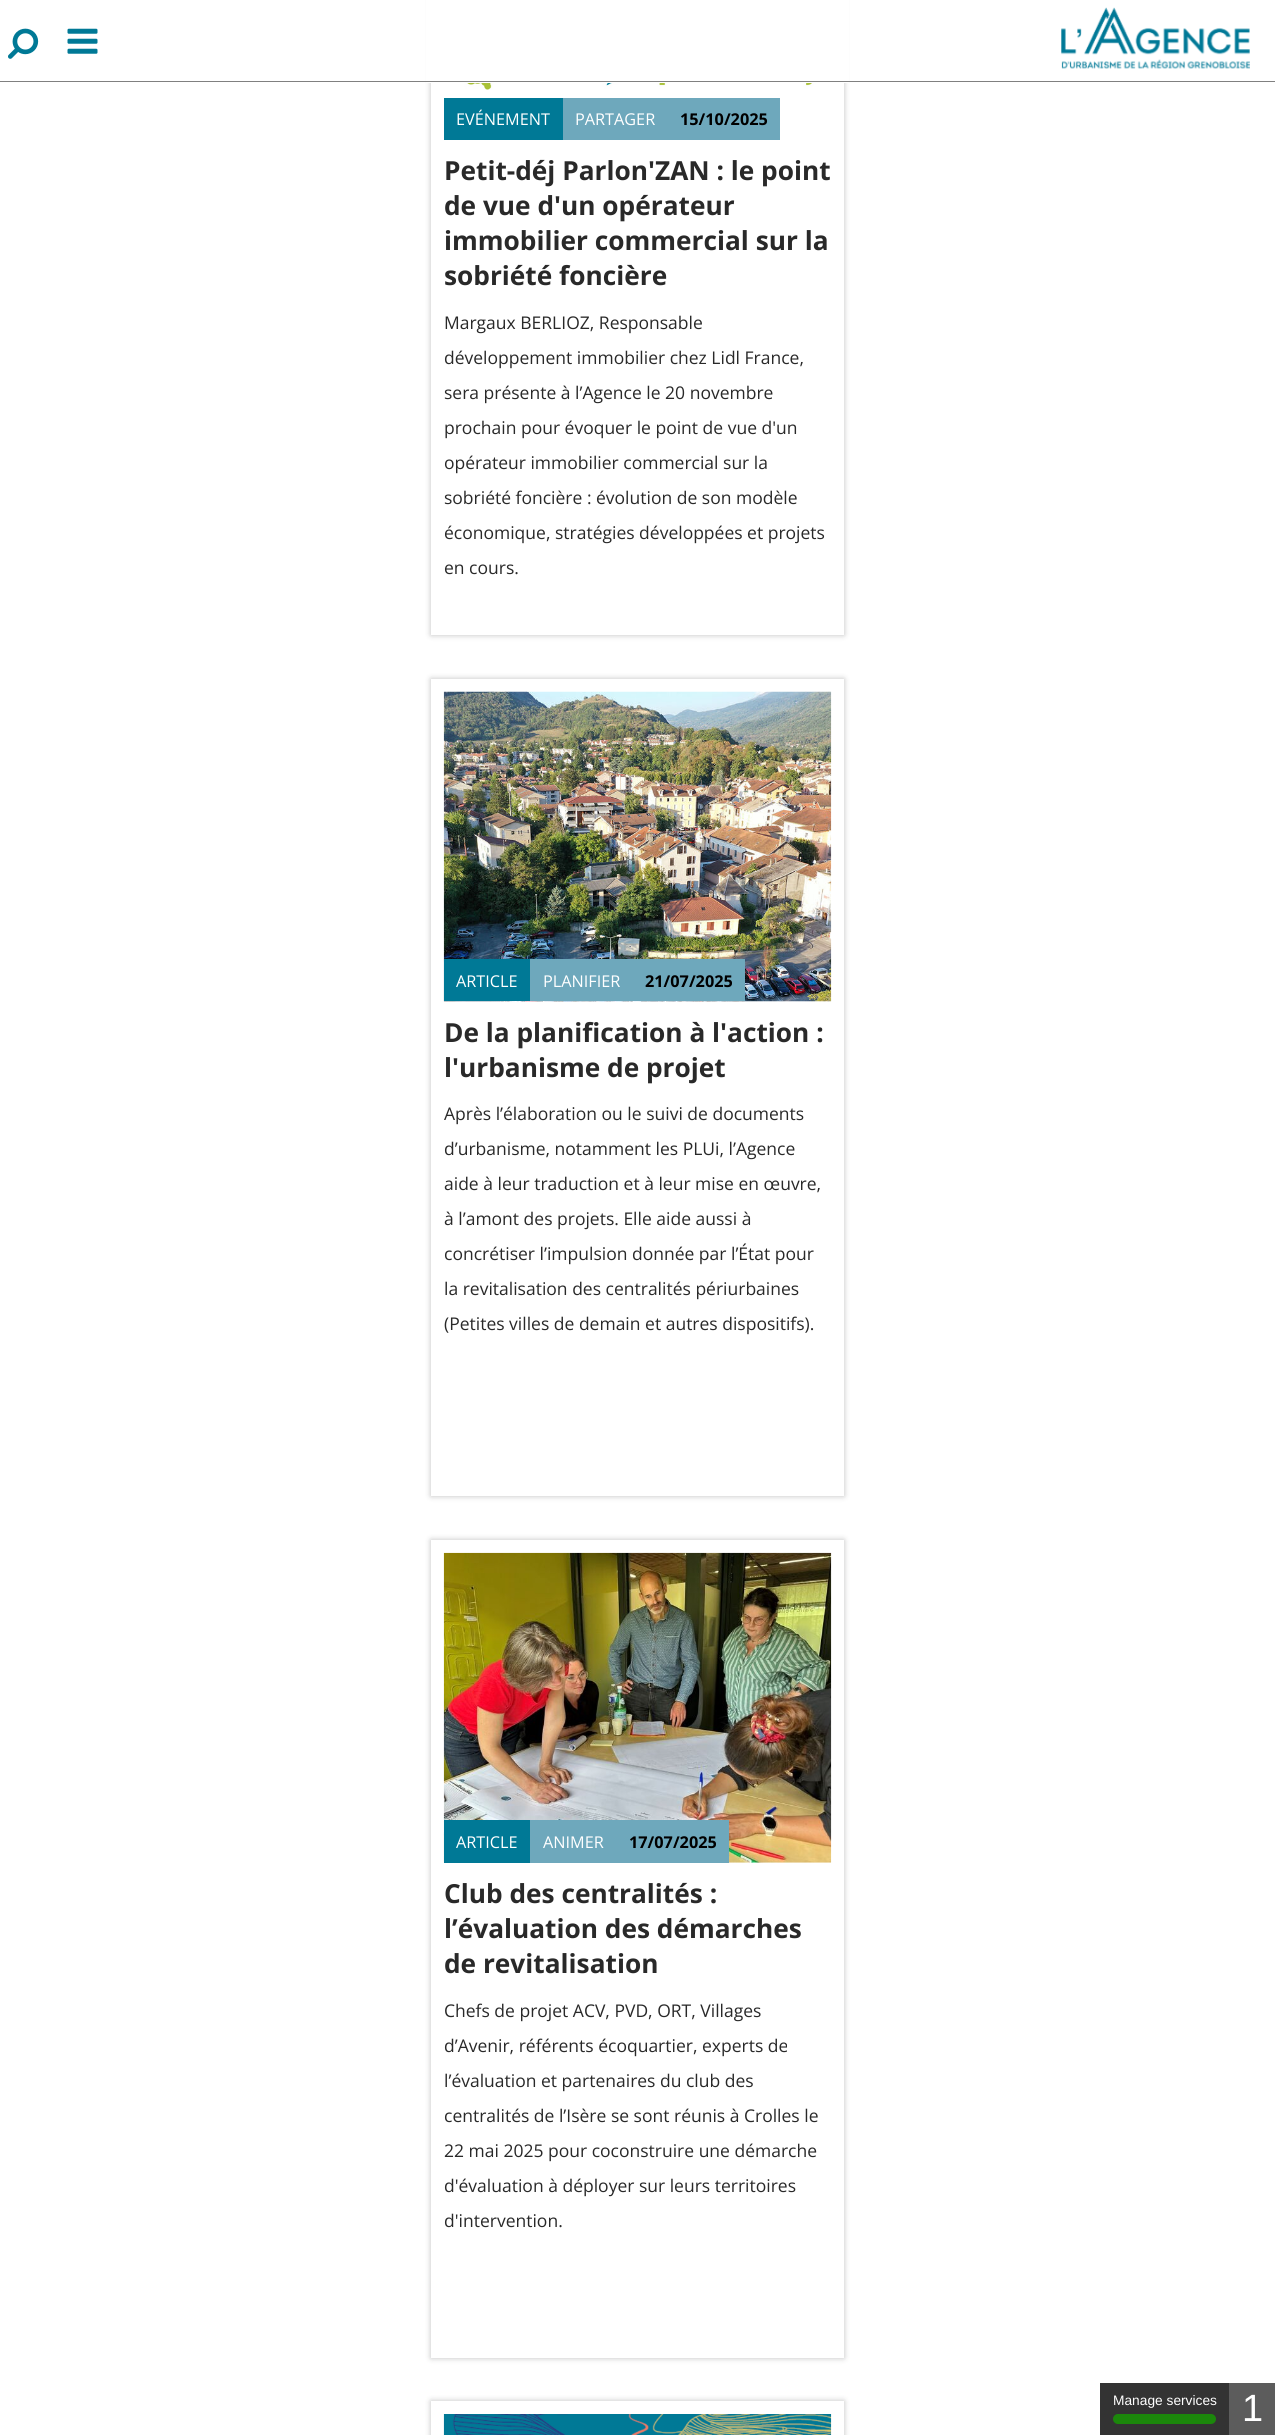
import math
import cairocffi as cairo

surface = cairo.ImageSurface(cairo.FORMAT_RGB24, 1275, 2435)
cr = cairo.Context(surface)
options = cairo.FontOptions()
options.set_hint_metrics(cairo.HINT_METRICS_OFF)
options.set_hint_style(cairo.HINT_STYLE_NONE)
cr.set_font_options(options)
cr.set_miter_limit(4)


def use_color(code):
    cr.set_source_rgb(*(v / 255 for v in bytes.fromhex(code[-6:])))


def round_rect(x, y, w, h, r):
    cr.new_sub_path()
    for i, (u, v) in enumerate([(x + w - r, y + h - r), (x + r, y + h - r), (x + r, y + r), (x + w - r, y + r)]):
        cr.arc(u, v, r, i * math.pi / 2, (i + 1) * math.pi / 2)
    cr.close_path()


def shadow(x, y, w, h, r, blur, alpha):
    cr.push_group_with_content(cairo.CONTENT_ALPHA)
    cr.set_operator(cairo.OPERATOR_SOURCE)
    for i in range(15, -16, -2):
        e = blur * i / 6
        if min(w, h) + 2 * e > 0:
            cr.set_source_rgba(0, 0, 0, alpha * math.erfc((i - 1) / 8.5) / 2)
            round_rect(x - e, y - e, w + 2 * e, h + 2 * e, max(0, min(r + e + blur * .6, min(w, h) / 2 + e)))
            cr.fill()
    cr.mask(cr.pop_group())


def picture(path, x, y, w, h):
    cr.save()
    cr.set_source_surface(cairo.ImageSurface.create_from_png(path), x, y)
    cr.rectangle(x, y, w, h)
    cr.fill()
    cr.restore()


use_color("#ffffff")
cr.paint()
cr.save()
cr.set_fill_rule(cairo.FILL_RULE_EVEN_ODD)
cr.new_path()
cr.move_to(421, 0)
cr.line_to(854, 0)
cr.line_to(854, 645)
cr.line_to(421, 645)
cr.close_path()
cr.move_to(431, -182)
cr.line_to(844, -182)
cr.line_to(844, 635)
cr.line_to(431, 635)
cr.close_path()
cr.clip()
use_color("#000000")
shadow(431, -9, 413, 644, 0, 3, 0.25)
cr.restore()
use_color("#ffffff")
cr.rectangle(426, 0, 423, 83)
cr.fill()
use_color("#808080")
cr.rectangle(0, 81, 1275, 1)
cr.fill()
picture("img1.png", 8, 28, 31, 31)
picture("img2.png", 67, 28, 31, 26)
picture("img3.png", 1061, 7, 189, 62)
picture("img4.png", 451, 83, 376, 7)
use_color("#6ea8bc")
cr.rectangle(563, 98, 217, 42)
cr.fill()
use_color("#007996")
cr.rectangle(444, 98, 119, 42)
cr.fill()
cr.select_font_face("Open Sans")
cr.set_font_size(16.25)
use_color("#ffffff")
cr.move_to(456, 125)
cr.show_text("EVÉNEMENT")
cr.move_to(575, 125)
cr.show_text("PARTAGER")
cr.select_font_face("Open Sans", cairo.FONT_SLANT_NORMAL, cairo.FONT_WEIGHT_BOLD)
use_color("#000000")
cr.move_to(680, 125)
cr.show_text("15/10/2025")
cr.set_font_size(26.25)
use_color("#292929")
cr.move_to(444, 180)
cr.show_text("Petit-déj Parlon'ZAN : le point")
cr.move_to(444, 215)
cr.show_text("de vue d'un opérateur")
cr.move_to(444, 250)
cr.show_text("immobilier commercial sur la")
cr.move_to(444, 285)
cr.show_text("sobriété foncière")
cr.select_font_face("Open Sans")
cr.set_font_size(17.5)
cr.move_to(444, 329)
cr.show_text("Margaux BERLIOZ, Responsable")
cr.move_to(444, 364)
cr.show_text("développement immobilier chez Lidl France,")
cr.move_to(444, 399)
cr.show_text("sera présente à l’Agence le 20 novembre")
cr.move_to(444, 434)
cr.show_text("prochain pour évoquer le point de vue d'un")
cr.move_to(444, 469)
cr.show_text("opérateur immobilier commercial sur la")
cr.move_to(444, 504)
cr.show_text("sobriété foncière : évolution de son modèle")
cr.move_to(444, 539)
cr.show_text("économique, stratégies développées et projets")
cr.move_to(444, 574)
cr.show_text("en cours.")
cr.save()
cr.set_fill_rule(cairo.FILL_RULE_EVEN_ODD)
cr.new_path()
cr.move_to(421, 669)
cr.line_to(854, 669)
cr.line_to(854, 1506)
cr.line_to(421, 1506)
cr.close_path()
cr.move_to(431, 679)
cr.line_to(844, 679)
cr.line_to(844, 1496)
cr.line_to(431, 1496)
cr.close_path()
cr.clip()
use_color("#000000")
shadow(431, 679, 413, 817, 0, 3, 0.25)
cr.restore()
picture("img5.png", 443, 691, 389, 311)
use_color("#6ea8bc")
cr.rectangle(530, 959, 215, 42)
cr.fill()
use_color("#007996")
cr.rectangle(444, 959, 86, 42)
cr.fill()
cr.set_font_size(16.25)
use_color("#ffffff")
cr.move_to(456, 987)
cr.show_text("ARTICLE")
cr.move_to(543, 987)
cr.show_text("PLANIFIER")
cr.select_font_face("Open Sans", cairo.FONT_SLANT_NORMAL, cairo.FONT_WEIGHT_BOLD)
use_color("#000000")
cr.move_to(645, 987)
cr.show_text("21/07/2025")
cr.set_font_size(26.25)
use_color("#292929")
cr.move_to(444, 1042)
cr.show_text("De la planification à l'action :")
cr.move_to(444, 1077)
cr.show_text("l'urbanisme de projet")
cr.select_font_face("Open Sans")
cr.set_font_size(17.5)
cr.move_to(444, 1120)
cr.show_text("Après l’élaboration ou le suivi de documents")
cr.move_to(444, 1155)
cr.show_text("d’urbanisme, notamment les PLUi, l’Agence")
cr.move_to(444, 1190)
cr.show_text("aide à leur traduction et à leur mise en œuvre,")
cr.move_to(444, 1225)
cr.show_text("à l’amont des projets. Elle aide aussi à")
cr.move_to(444, 1260)
cr.show_text("concrétiser l’impulsion donnée par l’État pour")
cr.move_to(444, 1295)
cr.show_text("la revitalisation des centralités périurbaines")
cr.move_to(444, 1330)
cr.show_text("(Petites villes de demain et autres dispositifs).")
cr.save()
cr.set_fill_rule(cairo.FILL_RULE_EVEN_ODD)
cr.new_path()
cr.move_to(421, 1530)
cr.line_to(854, 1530)
cr.line_to(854, 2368)
cr.line_to(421, 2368)
cr.close_path()
cr.move_to(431, 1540)
cr.line_to(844, 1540)
cr.line_to(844, 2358)
cr.line_to(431, 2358)
cr.close_path()
cr.clip()
use_color("#000000")
shadow(431, 1540, 413, 818, 0, 3, 0.25)
cr.restore()
picture("img6.png", 443, 1552, 389, 311)
use_color("#6ea8bc")
cr.rectangle(530, 1820, 199, 43)
cr.fill()
use_color("#007996")
cr.rectangle(444, 1820, 86, 43)
cr.fill()
cr.set_font_size(16.25)
use_color("#ffffff")
cr.move_to(456, 1848)
cr.show_text("ARTICLE")
cr.move_to(543, 1848)
cr.show_text("ANIMER")
cr.select_font_face("Open Sans", cairo.FONT_SLANT_NORMAL, cairo.FONT_WEIGHT_BOLD)
use_color("#000000")
cr.move_to(629, 1848)
cr.show_text("17/07/2025")
cr.set_font_size(26.25)
use_color("#292929")
cr.move_to(444, 1903)
cr.show_text("Club des centralités :")
cr.move_to(444, 1938)
cr.show_text("l’évaluation des démarches")
cr.move_to(444, 1973)
cr.show_text("de revitalisation")
cr.select_font_face("Open Sans")
cr.set_font_size(17.5)
cr.move_to(444, 2017)
cr.show_text("Chefs de projet ACV, PVD, ORT, Villages")
cr.move_to(444, 2052)
cr.show_text("d’Avenir, référents écoquartier, experts de")
cr.move_to(444, 2087)
cr.show_text("l’évaluation et partenaires du club des")
cr.move_to(444, 2122)
cr.show_text("centralités de l’Isère se sont réunis à Crolles le")
cr.move_to(444, 2157)
cr.show_text("22 mai 2025 pour coconstruire une démarche")
cr.move_to(444, 2192)
cr.show_text("d'évaluation à déployer sur leurs territoires")
cr.move_to(444, 2227)
cr.show_text("d'intervention.")
cr.save()
cr.set_fill_rule(cairo.FILL_RULE_EVEN_ODD)
cr.new_path()
cr.move_to(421, 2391)
cr.line_to(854, 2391)
cr.line_to(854, 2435)
cr.line_to(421, 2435)
cr.close_path()
cr.move_to(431, 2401)
cr.line_to(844, 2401)
cr.line_to(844, 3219)
cr.line_to(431, 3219)
cr.close_path()
cr.clip()
use_color("#000000")
shadow(431, 2401, 413, 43, 0, 3, 0.25)
cr.restore()
picture("img7.png", 443, 2414, 389, 21)
use_color("#333333")
cr.rectangle(1100, 2383, 129, 52)
cr.fill()
cr.select_font_face("Liberation Sans")
cr.set_font_size(13.75)
use_color("#ffffff")
cr.move_to(1113, 2405)
cr.show_text("Manage services")
use_color("#1b870b")
round_rect(1113, 2414, 103, 10, 5)
cr.fill()
use_color("#5c5c5c")
cr.rectangle(1229, 2383, 46, 52)
cr.fill()
cr.set_font_size(38)
use_color("#ffffff")
cr.move_to(1242, 2421)
cr.show_text("1")
surface.write_to_png("result.png")
